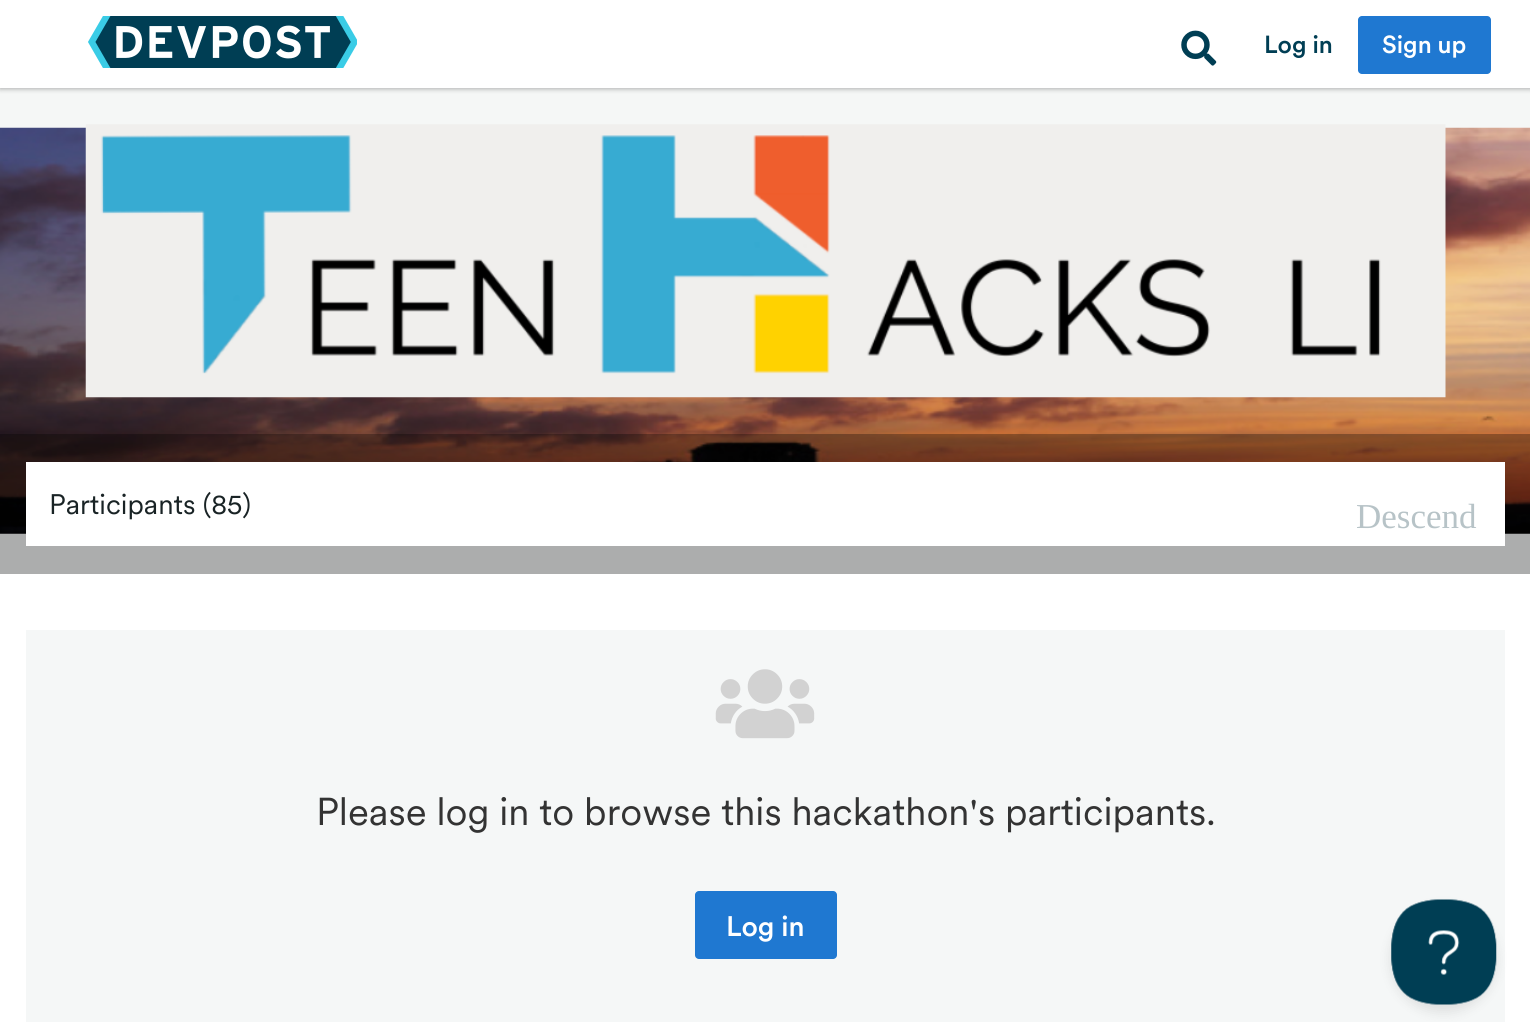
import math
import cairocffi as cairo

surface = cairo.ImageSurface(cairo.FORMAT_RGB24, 1530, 1022)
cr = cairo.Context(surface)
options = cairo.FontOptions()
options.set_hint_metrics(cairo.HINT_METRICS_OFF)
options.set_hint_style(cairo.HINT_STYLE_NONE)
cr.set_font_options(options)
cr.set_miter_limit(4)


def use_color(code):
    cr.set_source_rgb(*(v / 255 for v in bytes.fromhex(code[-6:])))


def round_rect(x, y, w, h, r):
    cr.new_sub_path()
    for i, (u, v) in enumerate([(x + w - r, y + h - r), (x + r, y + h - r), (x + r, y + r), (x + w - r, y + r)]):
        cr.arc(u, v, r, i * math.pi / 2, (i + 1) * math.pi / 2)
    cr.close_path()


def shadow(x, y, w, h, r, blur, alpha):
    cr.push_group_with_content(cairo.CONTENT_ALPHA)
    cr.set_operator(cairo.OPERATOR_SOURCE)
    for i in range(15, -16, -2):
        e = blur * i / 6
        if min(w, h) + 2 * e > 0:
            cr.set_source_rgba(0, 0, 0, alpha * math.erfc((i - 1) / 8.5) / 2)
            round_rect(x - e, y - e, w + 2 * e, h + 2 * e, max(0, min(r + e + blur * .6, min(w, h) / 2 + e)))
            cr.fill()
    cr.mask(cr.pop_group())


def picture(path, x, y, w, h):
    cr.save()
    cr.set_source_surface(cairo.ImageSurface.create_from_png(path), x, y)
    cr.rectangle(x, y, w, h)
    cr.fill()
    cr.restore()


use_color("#ffffff")
cr.paint()
use_color("#f5f7f6")
cr.rectangle(0, 88, 1530, 486)
cr.fill()
use_color("#000000")
shadow(0, 2, 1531, 87, 0, 2.5, 0.3)
use_color("#ffffff")
cr.rectangle(0, 0, 1530, 88)
cr.fill()
picture("img1.png", 88, 16, 269, 52)
picture("img2.png", 1181, 30, 36, 36)
cr.select_font_face("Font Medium")
cr.set_font_size(24.5)
use_color("#003e54")
cr.move_to(1264, 53)
cr.show_text("Log in")
use_color("#1f78d1")
round_rect(1358, 16, 133, 58, 4)
cr.fill()
use_color("#ffffff")
cr.move_to(1382, 53)
cr.show_text("Sign up")
picture("img3.png", 0, 127, 1530, 407)
picture("img4.png", 85, 124, 1361, 274)
cr.set_source_rgba(0, 0, 0, 0.3)
cr.rectangle(0, 434, 1530, 140)
cr.fill()
use_color("#ffffff")
cr.rectangle(26, 462, 1479, 84)
cr.fill()
cr.select_font_face("Font")
cr.set_font_size(28)
use_color("#192325")
cr.move_to(49, 514)
cr.show_text("Participants (85)")
cr.select_font_face("Liberation Serif")
cr.set_font_size(35)
use_color("#b7c3c7")
cr.move_to(1356, 528)
cr.show_text("Descend")
use_color("#f5f7f7")
cr.rectangle(26, 630, 1479, 392)
cr.fill()
picture("img5.png", 715, 669, 100, 70)
cr.select_font_face("Font")
cr.set_font_size(38.5)
use_color("#333333")
cr.move_to(316, 825)
cr.show_text("Please log in to browse this hackathon's participants.")
use_color("#1f78d1")
round_rect(695, 891, 142, 68, 4)
cr.fill()
cr.select_font_face("Font Medium")
cr.set_font_size(28)
use_color("#ffffff")
cr.move_to(726, 936)
cr.show_text("Log in")
use_color("#000000")
shadow(1391, 907, 105, 105, 52.5, 6, 0.1)
picture("img6.png", 1391, 899, 106, 106)
surface.write_to_png("result.png")
